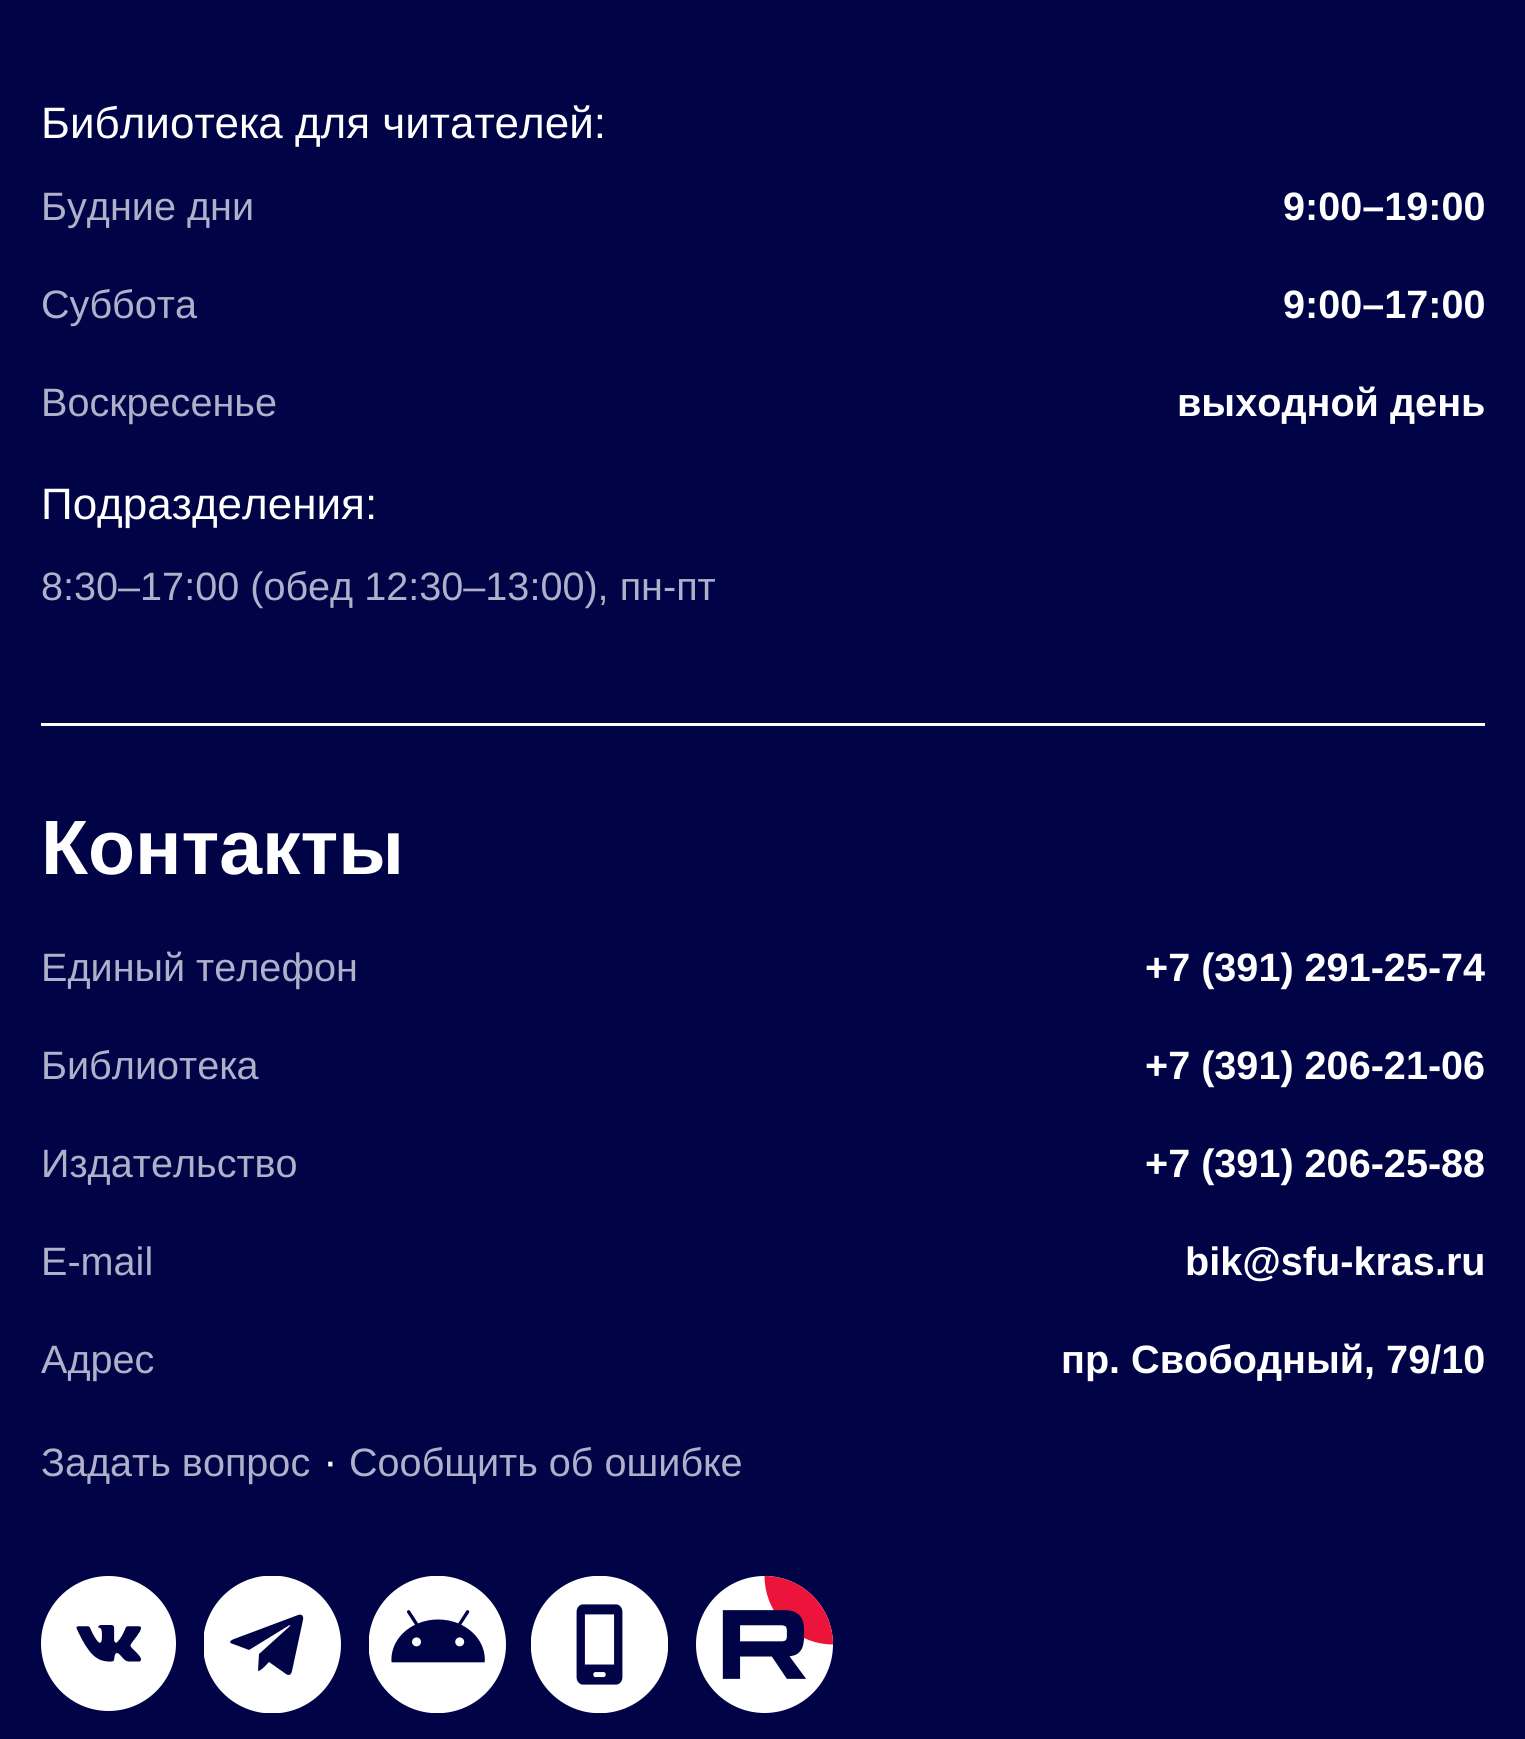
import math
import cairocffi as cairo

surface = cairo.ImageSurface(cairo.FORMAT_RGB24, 1525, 1739)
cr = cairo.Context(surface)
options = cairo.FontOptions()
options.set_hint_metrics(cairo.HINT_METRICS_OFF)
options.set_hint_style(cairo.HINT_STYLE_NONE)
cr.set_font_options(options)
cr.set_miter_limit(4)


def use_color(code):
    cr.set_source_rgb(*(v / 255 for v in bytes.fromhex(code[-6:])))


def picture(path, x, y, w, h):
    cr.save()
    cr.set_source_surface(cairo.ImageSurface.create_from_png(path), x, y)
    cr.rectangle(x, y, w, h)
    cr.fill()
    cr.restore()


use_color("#000346")
cr.paint()
use_color("#ffffff")
cr.rectangle(41, 723, 1444, 3)
cr.fill()
cr.select_font_face("Liberation Sans")
cr.set_font_size(44)
cr.move_to(41, 138)
cr.show_text("Библиотека для читателей:")
cr.set_font_size(39.6)
use_color("#afb0c9")
cr.move_to(41, 220)
cr.show_text("Будние дни")
cr.select_font_face("Liberation Sans", cairo.FONT_SLANT_NORMAL, cairo.FONT_WEIGHT_BOLD)
use_color("#ffffff")
cr.move_to(1283, 220)
cr.show_text("9:00–19:00")
cr.select_font_face("Liberation Sans")
use_color("#afb0c9")
cr.move_to(41, 318)
cr.show_text("Суббота")
cr.select_font_face("Liberation Sans", cairo.FONT_SLANT_NORMAL, cairo.FONT_WEIGHT_BOLD)
use_color("#ffffff")
cr.move_to(1283, 318)
cr.show_text("9:00–17:00")
cr.select_font_face("Liberation Sans")
use_color("#afb0c9")
cr.move_to(41, 416)
cr.show_text("Воскресенье")
cr.select_font_face("Liberation Sans", cairo.FONT_SLANT_NORMAL, cairo.FONT_WEIGHT_BOLD)
use_color("#ffffff")
cr.move_to(1177, 416)
cr.show_text("выходной день")
cr.select_font_face("Liberation Sans")
cr.set_font_size(44)
cr.move_to(41, 519)
cr.show_text("Подразделения:")
cr.set_font_size(39.6)
use_color("#afb0c9")
cr.move_to(41, 600)
cr.show_text("8:30–17:00 (обед 12:30–13:00), пн-пт")
cr.select_font_face("Liberation Sans", cairo.FONT_SLANT_NORMAL, cairo.FONT_WEIGHT_BOLD)
cr.set_font_size(77)
use_color("#ffffff")
cr.move_to(41, 874)
cr.show_text("Контакты")
cr.select_font_face("Liberation Sans")
cr.set_font_size(39.6)
use_color("#afb0c9")
cr.move_to(41, 981)
cr.show_text("Единый телефон")
cr.select_font_face("Liberation Sans", cairo.FONT_SLANT_NORMAL, cairo.FONT_WEIGHT_BOLD)
use_color("#ffffff")
cr.move_to(1145, 981)
cr.show_text("+7 (391) 291-25-74")
cr.select_font_face("Liberation Sans")
use_color("#afb0c9")
cr.move_to(41, 1079)
cr.show_text("Библиотека")
cr.select_font_face("Liberation Sans", cairo.FONT_SLANT_NORMAL, cairo.FONT_WEIGHT_BOLD)
use_color("#ffffff")
cr.move_to(1145, 1079)
cr.show_text("+7 (391) 206-21-06")
cr.select_font_face("Liberation Sans")
use_color("#afb0c9")
cr.move_to(41, 1177)
cr.show_text("Издательство")
cr.select_font_face("Liberation Sans", cairo.FONT_SLANT_NORMAL, cairo.FONT_WEIGHT_BOLD)
use_color("#ffffff")
cr.move_to(1145, 1177)
cr.show_text("+7 (391) 206-25-88")
cr.select_font_face("Liberation Sans")
use_color("#afb0c9")
cr.move_to(41, 1275)
cr.show_text("E-mail")
cr.select_font_face("Liberation Sans", cairo.FONT_SLANT_NORMAL, cairo.FONT_WEIGHT_BOLD)
use_color("#ffffff")
cr.move_to(1185, 1275)
cr.show_text("bik@sfu-kras.ru")
cr.select_font_face("Liberation Sans")
use_color("#afb0c9")
cr.move_to(41, 1373)
cr.show_text("Адрес")
cr.select_font_face("Liberation Sans", cairo.FONT_SLANT_NORMAL, cairo.FONT_WEIGHT_BOLD)
use_color("#ffffff")
cr.move_to(1061, 1373)
cr.show_text("пр. Свободный, 79/10")
cr.select_font_face("Liberation Sans")
use_color("#afb0c9")
cr.move_to(41, 1476)
cr.show_text("Задать вопрос")
cr.set_font_size(44)
use_color("#ffffff")
cr.move_to(323, 1476)
cr.show_text("·")
cr.set_font_size(39.6)
use_color("#afb0c9")
cr.move_to(349, 1476)
cr.show_text("Сообщить об ошибке")
picture("img1.png", 41, 1576, 135, 135)
cr.save()
cr.rectangle(204, 1576, 137, 137)
cr.clip()
use_color("#ffffff")
cr.arc(272, 1644.5, 69, 0, 2 * math.pi)
cr.fill()
cr.restore()
use_color("#000346")
cr.new_path()
cr.move_to(259, 1654)
cr.line_to(258, 1671)
cr.curve_to(261, 1671, 267, 1664, 269, 1662)
cr.line_to(286, 1674)
cr.curve_to(289, 1676, 291, 1675, 292, 1671)
cr.line_to(303, 1620)
cr.curve_to(304, 1615, 301, 1614, 298, 1615)
cr.line_to(234, 1639)
cr.curve_to(229, 1641, 229, 1643, 233, 1644)
cr.line_to(249, 1650)
cr.line_to(288, 1626)
cr.curve_to(289, 1625, 291, 1625, 290, 1626)
cr.close_path()
cr.fill()
picture("img2.png", 369, 1576, 137, 137)
picture("img3.png", 531, 1576, 137, 137)
picture("img4.png", 696, 1576, 137, 137)
surface.write_to_png("result.png")
